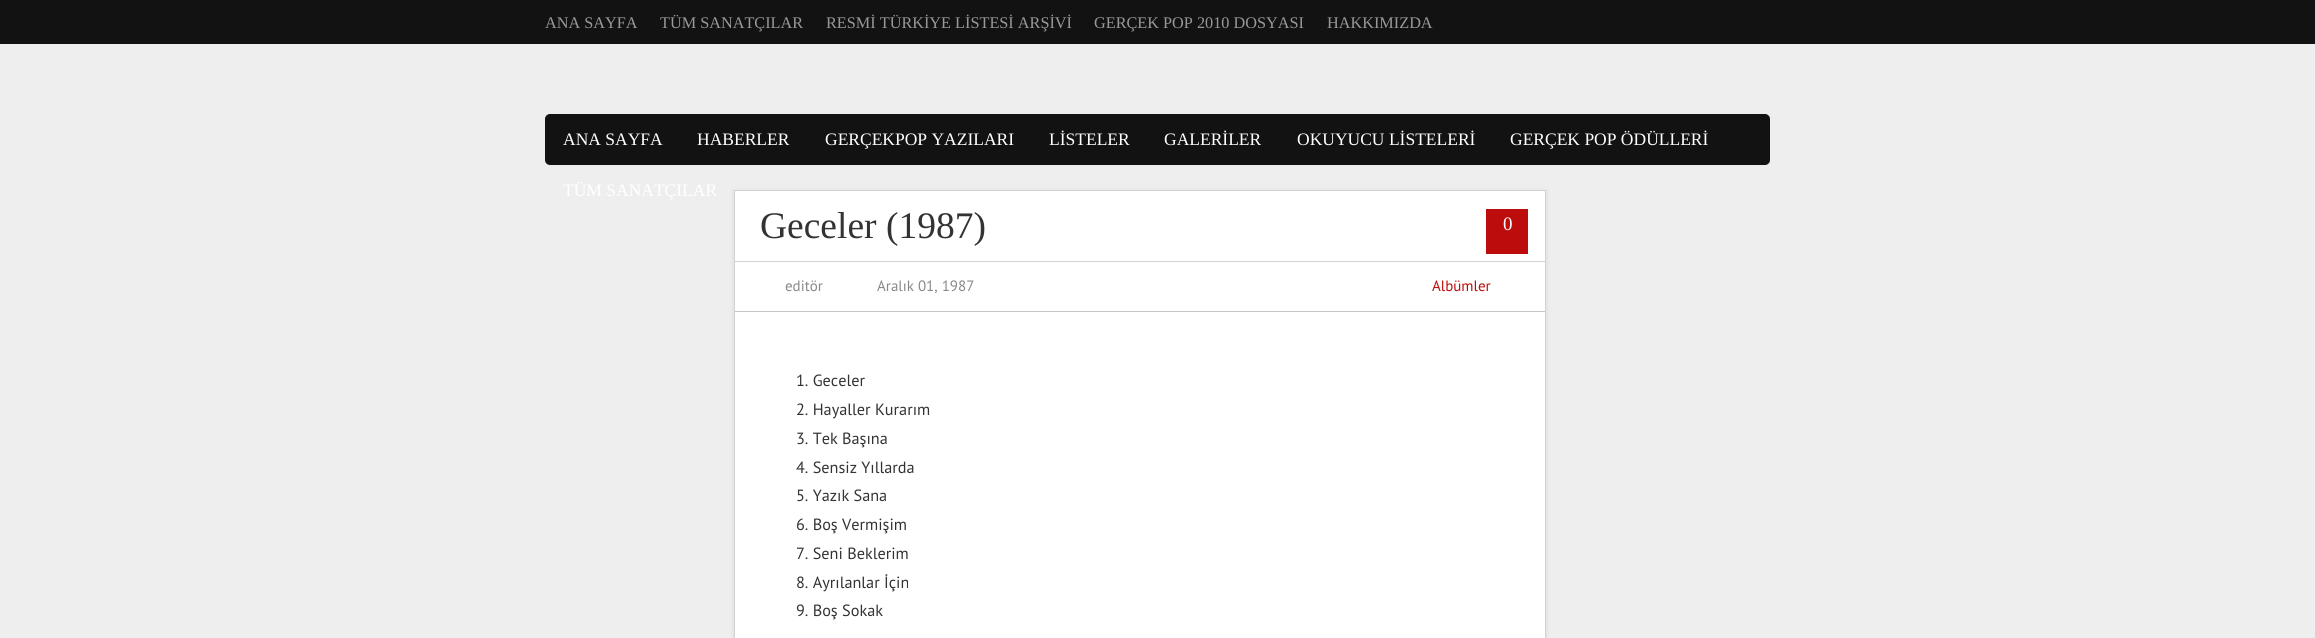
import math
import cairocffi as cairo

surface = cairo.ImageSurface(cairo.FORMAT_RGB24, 2315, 638)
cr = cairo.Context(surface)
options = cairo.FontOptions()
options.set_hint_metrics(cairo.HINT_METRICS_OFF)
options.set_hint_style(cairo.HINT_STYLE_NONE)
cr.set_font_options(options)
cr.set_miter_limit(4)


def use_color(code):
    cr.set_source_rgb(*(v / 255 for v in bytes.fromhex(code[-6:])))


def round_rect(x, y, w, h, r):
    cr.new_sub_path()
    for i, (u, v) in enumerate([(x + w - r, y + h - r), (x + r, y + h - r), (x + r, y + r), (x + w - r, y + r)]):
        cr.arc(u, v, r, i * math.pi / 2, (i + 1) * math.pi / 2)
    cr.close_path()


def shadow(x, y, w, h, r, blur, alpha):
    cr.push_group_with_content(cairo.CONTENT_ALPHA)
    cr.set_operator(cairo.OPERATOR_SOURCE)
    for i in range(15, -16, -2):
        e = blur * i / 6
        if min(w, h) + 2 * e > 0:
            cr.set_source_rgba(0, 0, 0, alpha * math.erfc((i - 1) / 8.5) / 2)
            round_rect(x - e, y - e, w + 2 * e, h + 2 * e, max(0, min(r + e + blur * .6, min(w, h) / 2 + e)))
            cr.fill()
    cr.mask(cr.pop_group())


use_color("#eeeeee")
cr.paint()
use_color("#121212")
cr.rectangle(0, 0, 2315, 44)
cr.fill()
cr.select_font_face("Liberation Serif")
cr.set_font_size(16.25)
use_color("#999999")
cr.move_to(545, 28)
cr.show_text("ANA SAYFA")
cr.move_to(660, 28)
cr.show_text("TÜM SANATÇILAR")
cr.move_to(826, 28)
cr.show_text("RESMİ TÜRKİYE LİSTESİ ARŞİVİ")
cr.move_to(1094, 28)
cr.show_text("GERÇEK POP 2010 DOSYASI")
cr.move_to(1327, 28)
cr.show_text("HAKKIMIZDA")
use_color("#121212")
round_rect(545, 114, 1225, 51, 5)
cr.fill()
cr.set_font_size(17.5)
use_color("#ffffff")
cr.move_to(563, 145)
cr.show_text("ANA SAYFA")
cr.move_to(697, 145)
cr.show_text("HABERLER")
cr.move_to(825, 145)
cr.show_text("GERÇEKPOP YAZILARI")
cr.move_to(1049, 145)
cr.show_text("LİSTELER")
cr.move_to(1164, 145)
cr.show_text("GALERİLER")
cr.move_to(1297, 145)
cr.show_text("OKUYUCU LİSTELERİ")
cr.move_to(1510, 145)
cr.show_text("GERÇEK POP ÖDÜLLERİ")
cr.move_to(563, 196)
cr.show_text("TÜM SANATÇILAR")
use_color("#000000")
shadow(734, 191, 812, 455, 0, 2.5, 0.1)
use_color("#ffffff")
cr.rectangle(734.5, 190.5, 811, 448)
cr.fill_preserve()
use_color("#d2d2d2")
cr.set_line_width(1)
cr.stroke()
cr.set_font_size(37.5)
use_color("#333333")
cr.move_to(760, 238)
cr.show_text("Geceler (1987)")
use_color("#bc0c0c")
cr.rectangle(1486, 209, 42, 45)
cr.fill()
cr.set_font_size(19)
use_color("#ffffff")
cr.move_to(1503, 230)
cr.show_text("0")
use_color("#d2d2d2")
cr.rectangle(735, 261, 810, 1)
cr.fill()
use_color("#c5c5c5")
cr.rectangle(735, 311, 810, 1)
cr.fill()
cr.select_font_face("PT Sans")
cr.set_font_size(15)
use_color("#888888")
cr.move_to(785, 291)
cr.show_text("editör")
cr.move_to(877, 291)
cr.show_text("Aralık 01, 1987")
use_color("#bc0c0c")
cr.move_to(1432, 291)
cr.show_text("Albümler")
cr.set_font_size(16.25)
use_color("#333333")
cr.move_to(796, 386)
cr.show_text("1. Geceler")
cr.move_to(796, 415)
cr.show_text("2. Hayaller Kurarım")
cr.move_to(796, 444)
cr.show_text("3. Tek Başına")
cr.move_to(796, 473)
cr.show_text("4. Sensiz Yıllarda")
cr.move_to(796, 501)
cr.show_text("5. Yazık Sana")
cr.move_to(796, 530)
cr.show_text("6. Boş Vermişim")
cr.move_to(796, 559)
cr.show_text("7. Seni Beklerim")
cr.move_to(796, 588)
cr.show_text("8. Ayrılanlar İçin")
cr.move_to(796, 616)
cr.show_text("9. Boş Sokak")
surface.write_to_png("result.png")
